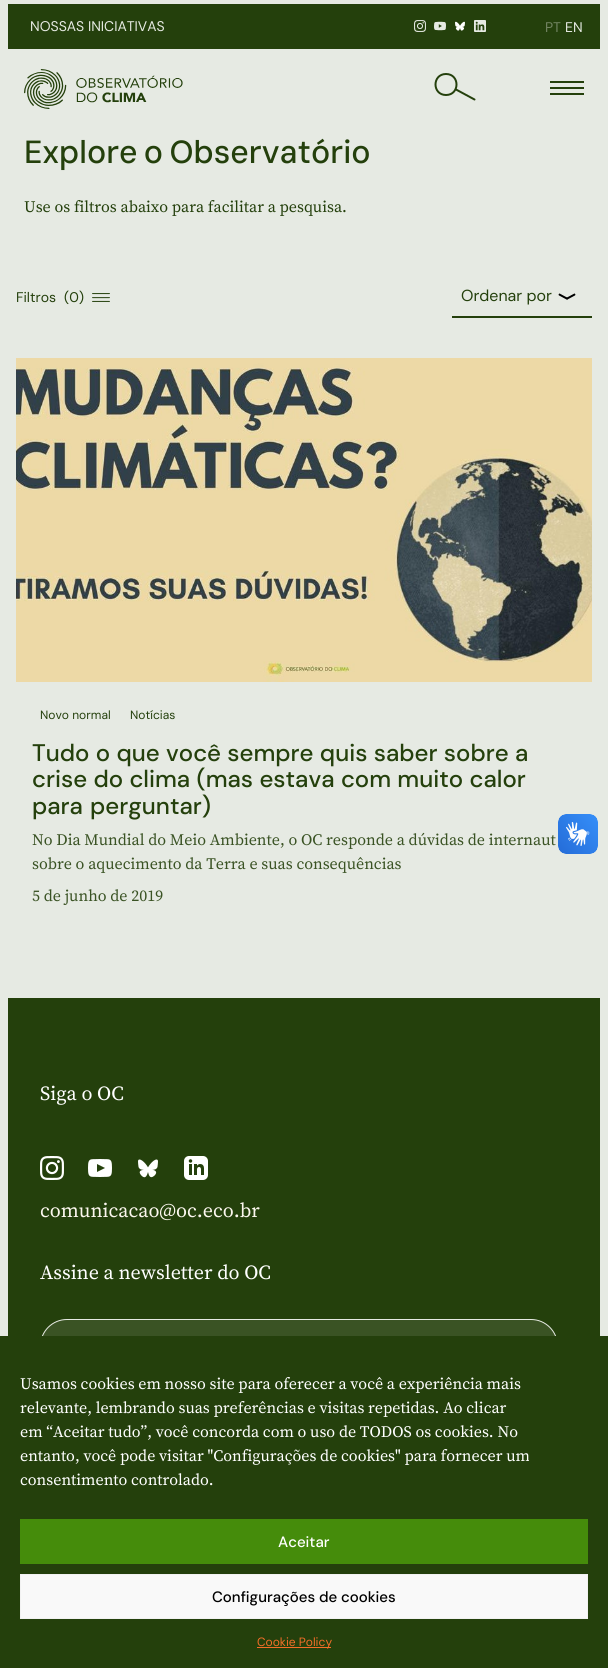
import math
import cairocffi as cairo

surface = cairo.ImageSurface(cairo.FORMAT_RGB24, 608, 1668)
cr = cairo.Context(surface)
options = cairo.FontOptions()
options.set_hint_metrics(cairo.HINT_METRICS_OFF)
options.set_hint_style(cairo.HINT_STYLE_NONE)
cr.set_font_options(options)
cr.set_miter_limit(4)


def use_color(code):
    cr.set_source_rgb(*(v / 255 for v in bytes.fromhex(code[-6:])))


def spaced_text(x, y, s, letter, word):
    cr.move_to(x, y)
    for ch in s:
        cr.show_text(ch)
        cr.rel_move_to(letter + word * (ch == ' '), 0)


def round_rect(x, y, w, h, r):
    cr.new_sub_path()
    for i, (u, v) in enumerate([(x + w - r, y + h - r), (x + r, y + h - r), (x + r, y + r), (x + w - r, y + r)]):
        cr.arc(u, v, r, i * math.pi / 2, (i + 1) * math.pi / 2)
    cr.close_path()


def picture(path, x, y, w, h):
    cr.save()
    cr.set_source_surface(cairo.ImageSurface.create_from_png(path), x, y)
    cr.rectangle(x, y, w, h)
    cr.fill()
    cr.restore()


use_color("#e6eae3")
cr.paint()
use_color("#24400c")
cr.rectangle(8, 4, 592, 45)
cr.fill()
cr.select_font_face("DM Sans")
cr.set_font_size(14)
use_color("#e6eae3")
cr.move_to(30, 31)
cr.show_text("NOSSAS INICIATIVAS")
picture("img1.png", 414, 20, 12, 12)
picture("img2.png", 434, 21, 12, 10)
picture("img3.png", 455, 21, 10, 10)
picture("img4.png", 474, 20, 12, 12)
use_color("#728462")
cr.move_to(545, 32)
cr.show_text("PT")
use_color("#e6eae3")
cr.move_to(565, 32)
cr.show_text("EN")
picture("img5.png", 24, 69, 159, 40)
cr.new_path()
cr.move_to(446, 95)
cr.curve_to(460, 95, 460, 74, 446, 74)
cr.curve_to(432, 74, 432, 95, 446, 95)
cr.close_path()
cr.move_to(474.5, 99.5)
cr.line_to(456, 89.5)
use_color("#24400c")
cr.set_line_cap(cairo.LINE_CAP_ROUND)
cr.set_line_join(cairo.LINE_JOIN_ROUND)
cr.stroke()
cr.rectangle(550, 81, 34, 2)
cr.fill()
cr.rectangle(550, 87, 34, 2)
cr.fill()
cr.rectangle(550, 93, 34, 2)
cr.fill()
cr.select_font_face("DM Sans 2 Medium")
cr.set_font_size(32)
spaced_text(24, 163, "Explore o Observatório", 0, -2)
cr.select_font_face("Source Serif 4")
cr.set_font_size(16)
cr.move_to(24, 212)
cr.show_text("Use os filtros abaixo para facilitar a pesquisa.")
cr.select_font_face("DM Sans")
cr.set_font_size(14)
cr.move_to(16, 302)
cr.show_text("Filtros")
cr.move_to(64, 302)
cr.show_text("(0)")
picture("img6.png", 92, 293, 18, 9)
cr.rectangle(452, 316, 140, 2)
cr.fill()
cr.select_font_face("DM Sans 2")
cr.set_font_size(16)
cr.move_to(461, 301)
cr.show_text("Ordenar por")
picture("img7.png", 558, 293, 18, 7)
picture("img8.png", 16, 358, 576, 324)
cr.select_font_face("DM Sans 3")
cr.set_font_size(12)
cr.move_to(40, 719)
cr.show_text("Novo normal")
cr.move_to(130, 719)
cr.show_text("Notícias")
cr.select_font_face("DM Sans Medium")
cr.set_font_size(24)
spaced_text(32, 761, "Tudo o que você sempre quis saber sobre a", 0, 0.25)
spaced_text(32, 787, "crise do clima (mas estava com muito calor", 0, 0.25)
spaced_text(32, 814, "para perguntar)", 0, 1)
cr.select_font_face("Source Serif 4")
cr.set_font_size(16)
use_color("#3a5324")
cr.move_to(32, 845)
cr.show_text("No Dia Mundial do Meio Ambiente, o OC responde a dúvidas de internaut")
cr.move_to(32, 869)
cr.show_text("sobre o aquecimento da Terra e suas consequências")
cr.move_to(32, 901)
cr.show_text("5 de junho de 2019")
picture("img9.png", 558, 814, 40, 40)
use_color("#24400c")
cr.rectangle(8, 998, 592, 338)
cr.fill()
cr.set_font_size(20)
use_color("#ffffff")
cr.move_to(40, 1100)
cr.show_text("Siga o OC")
picture("img10.png", 40, 1156, 24, 24)
picture("img11.png", 88, 1159, 24, 18)
picture("img12.png", 138, 1159, 20, 19)
picture("img13.png", 184, 1156, 24, 24)
use_color("#fcf7ef")
cr.move_to(40, 1217)
cr.show_text("comunicacao@oc.eco.br")
use_color("#ffffff")
cr.move_to(40, 1279)
cr.show_text("Assine a newsletter do OC")
use_color("#3a5324")
round_rect(40.5, 1319.5, 517, 53, 26.5)
cr.fill_preserve()
use_color("#e6eae3")
cr.set_line_width(1)
cr.set_line_cap(cairo.LINE_CAP_BUTT)
cr.set_line_join(cairo.LINE_JOIN_MITER)
cr.stroke()
use_color("#24400c")
cr.rectangle(0, 1336, 608, 332)
cr.fill()
cr.set_font_size(16)
use_color("#ffffff")
cr.move_to(20, 1389)
cr.show_text("Usamos cookies em nosso site para oferecer a você a experiência mais")
cr.move_to(20, 1413)
cr.show_text("relevante, lembrando suas preferências e visitas repetidas. Ao clicar")
cr.move_to(20, 1437)
cr.show_text("em “Aceitar tudo”, você concorda com o uso de TODOS os cookies. No")
cr.move_to(20, 1461)
cr.show_text("entanto, você pode visitar \"Configurações de cookies\" para fornecer um")
cr.move_to(20, 1485)
cr.show_text("consentimento controlado.")
use_color("#458c0b")
cr.rectangle(20, 1519, 568, 45)
cr.fill()
cr.select_font_face("DM Sans 3 Medium")
cr.set_font_size(15)
use_color("#ffffff")
cr.move_to(278, 1547)
cr.show_text("Aceitar")
use_color("#f9f9f9")
cr.rectangle(20.5, 1574.5, 567, 44)
cr.fill_preserve()
use_color("#f2f2f2")
cr.stroke()
use_color("#000000")
cr.move_to(212, 1602)
cr.show_text("Configurações de cookies")
use_color("#f56e28")
cr.rectangle(257, 1647, 74, 1)
cr.fill()
cr.select_font_face("DM Sans 3")
cr.set_font_size(12)
cr.move_to(257, 1646)
cr.show_text("Cookie Policy")
surface.write_to_png("result.png")
